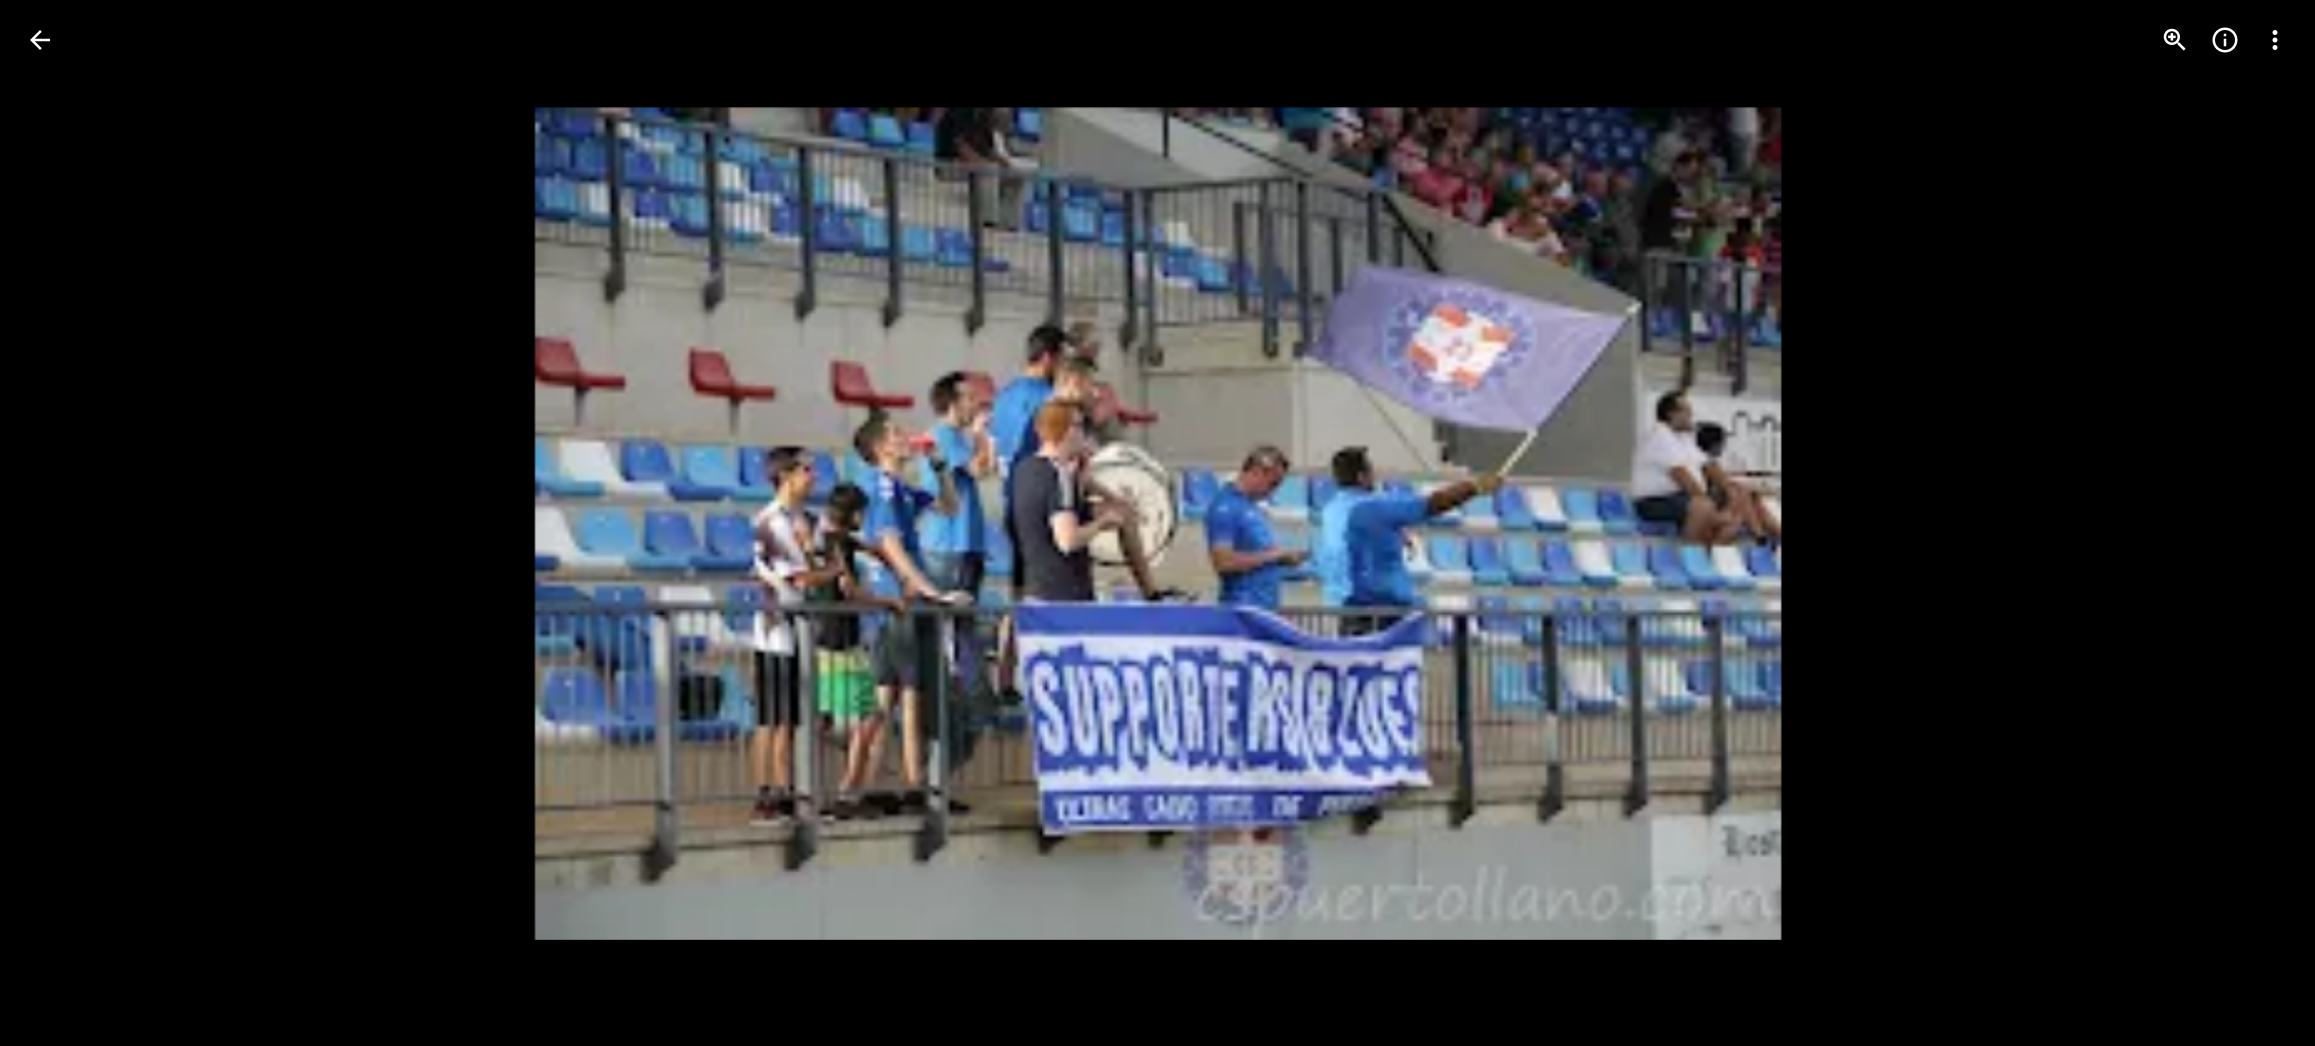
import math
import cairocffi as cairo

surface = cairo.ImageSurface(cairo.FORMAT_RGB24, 2315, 1046)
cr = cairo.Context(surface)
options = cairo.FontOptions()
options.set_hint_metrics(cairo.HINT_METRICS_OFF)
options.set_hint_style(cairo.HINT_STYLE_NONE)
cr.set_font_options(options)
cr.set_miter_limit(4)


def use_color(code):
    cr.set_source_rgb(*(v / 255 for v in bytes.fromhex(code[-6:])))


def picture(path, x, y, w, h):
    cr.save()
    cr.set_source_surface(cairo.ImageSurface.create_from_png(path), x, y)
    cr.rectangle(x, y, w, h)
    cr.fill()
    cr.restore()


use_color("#000000")
cr.paint()
picture("img1.png", 30, 30, 20, 20)
picture("img2.png", 2163, 28, 23, 23)
picture("img3.png", 2212, 27, 26, 26)
picture("img4.png", 2272, 30, 6, 20)
picture("img5.png", 534, 107, 1248, 833)
surface.write_to_png("result.png")
